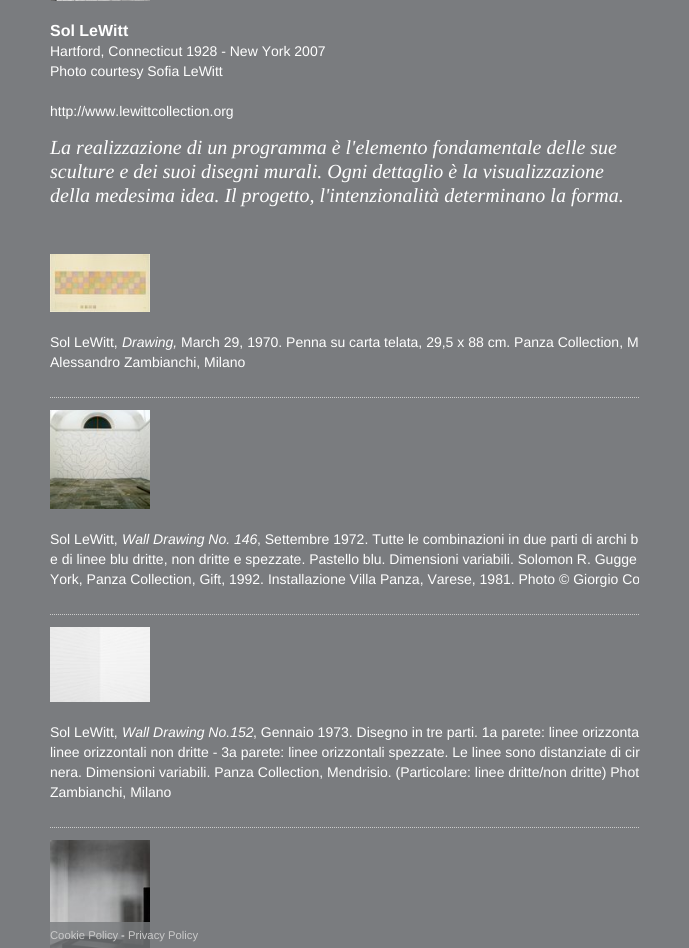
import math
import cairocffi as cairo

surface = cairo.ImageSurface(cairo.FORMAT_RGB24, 689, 948)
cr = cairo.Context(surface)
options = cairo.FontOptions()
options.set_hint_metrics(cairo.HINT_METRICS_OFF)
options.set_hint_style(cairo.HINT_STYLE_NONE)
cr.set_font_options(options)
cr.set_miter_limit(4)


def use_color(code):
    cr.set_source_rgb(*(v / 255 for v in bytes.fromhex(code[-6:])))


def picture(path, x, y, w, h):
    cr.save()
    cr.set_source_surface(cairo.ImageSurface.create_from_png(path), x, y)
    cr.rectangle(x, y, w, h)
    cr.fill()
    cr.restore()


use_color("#7a7c7f")
cr.paint()
picture("img1.png", 50, 0, 100, 1)
cr.select_font_face("Liberation Sans", cairo.FONT_SLANT_NORMAL, cairo.FONT_WEIGHT_BOLD)
cr.set_font_size(16)
use_color("#ffffff")
cr.move_to(50, 36)
cr.show_text("Sol LeWitt")
cr.select_font_face("Liberation Sans")
cr.set_font_size(14)
cr.move_to(50, 56)
cr.show_text("Hartford, Connecticut 1928 - New York 2007")
cr.move_to(50, 76)
cr.show_text("Photo courtesy Sofia LeWitt")
cr.move_to(50, 116)
cr.show_text("http://www.lewittcollection.org")
cr.select_font_face("Liberation Serif", cairo.FONT_SLANT_ITALIC)
cr.set_font_size(20)
cr.move_to(50, 154)
cr.show_text("La realizzazione di un programma è l'elemento fondamentale delle sue")
cr.move_to(50, 178)
cr.show_text("sculture e dei suoi disegni murali. Ogni dettaglio è la visualizzazione")
cr.move_to(50, 202)
cr.show_text("della medesima idea. Il progetto, l'intenzionalità determinano la forma.")
cr.save()
cr.rectangle(50, 242, 589, 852)
cr.clip()
cr.new_path()
cr.move_to(50, 397.5)
cr.line_to(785, 397.5)
use_color("#cccccc")
cr.set_line_width(1)
cr.set_dash([1, 1])
cr.stroke()
cr.restore()
picture("img2.png", 50, 254, 100, 58)
cr.select_font_face("Liberation Sans")
cr.set_font_size(14)
cr.move_to(50, 347)
cr.show_text("Sol LeWitt,")
cr.select_font_face("Liberation Sans", cairo.FONT_SLANT_ITALIC)
cr.move_to(122, 347)
cr.show_text("Drawing,")
cr.select_font_face("Liberation Sans")
cr.move_to(181, 347)
cr.show_text("March 29, 1970. Penna su carta telata, 29,5 x 88 cm. Panza Collection, M")
cr.move_to(50, 367)
cr.show_text("Alessandro Zambianchi, Milano")
cr.save()
cr.rectangle(50, 242, 589, 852)
cr.clip()
cr.new_path()
cr.move_to(50, 614.5)
cr.line_to(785, 614.5)
use_color("#cccccc")
cr.set_line_width(1)
cr.set_dash([1, 1])
cr.stroke()
cr.restore()
picture("img3.png", 50, 410, 100, 99)
cr.move_to(50, 544)
cr.show_text("Sol LeWitt,")
cr.select_font_face("Liberation Sans", cairo.FONT_SLANT_ITALIC)
cr.move_to(122, 544)
cr.show_text("Wall Drawing No. 146")
cr.select_font_face("Liberation Sans")
cr.move_to(257, 544)
cr.show_text(", Settembre 1972. Tutte le combinazioni in due parti di archi b")
cr.move_to(50, 564)
cr.show_text("e di linee blu dritte, non dritte e spezzate. Pastello blu. Dimensioni variabili. Solomon R. Gugge")
cr.save()
cr.rectangle(50, 242, 589, 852)
cr.clip()
cr.move_to(50, 584)
cr.show_text("York, Panza Collection, Gift, 1992. Installazione Villa Panza, Varese, 1981. Photo © Giorgio Co")
cr.new_path()
cr.move_to(50, 827.5)
cr.line_to(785, 827.5)
use_color("#cccccc")
cr.set_line_width(1)
cr.set_dash([1, 1])
cr.stroke()
cr.restore()
picture("img4.png", 50, 627, 100, 75)
cr.move_to(50, 737)
cr.show_text("Sol LeWitt,")
cr.select_font_face("Liberation Sans", cairo.FONT_SLANT_ITALIC)
cr.move_to(122, 737)
cr.show_text("Wall Drawing No.152")
cr.select_font_face("Liberation Sans")
cr.move_to(253, 737)
cr.show_text(", Gennaio 1973. Disegno in tre parti. 1a parete: linee orizzonta")
cr.move_to(50, 757)
cr.show_text("linee orizzontali non dritte - 3a parete: linee orizzontali spezzate. Le linee sono distanziate di cir")
cr.move_to(50, 777)
cr.show_text("nera. Dimensioni variabili. Panza Collection, Mendrisio. (Particolare: linee dritte/non dritte) Phot")
cr.move_to(50, 797)
cr.show_text("Zambianchi, Milano")
picture("img5.png", 50, 840, 100, 108)
cr.set_source_rgba(0.478, 0.486, 0.498, 0.8)
cr.rectangle(50, 922, 100, 26)
cr.fill()
cr.set_font_size(11.25)
use_color("#cacaca")
cr.move_to(50, 939)
cr.show_text("Cookie Policy")
use_color("#ffffff")
cr.move_to(121, 939)
cr.show_text("-")
use_color("#cacaca")
cr.move_to(128, 939)
cr.show_text("Privacy Policy")
surface.write_to_png("result.png")
